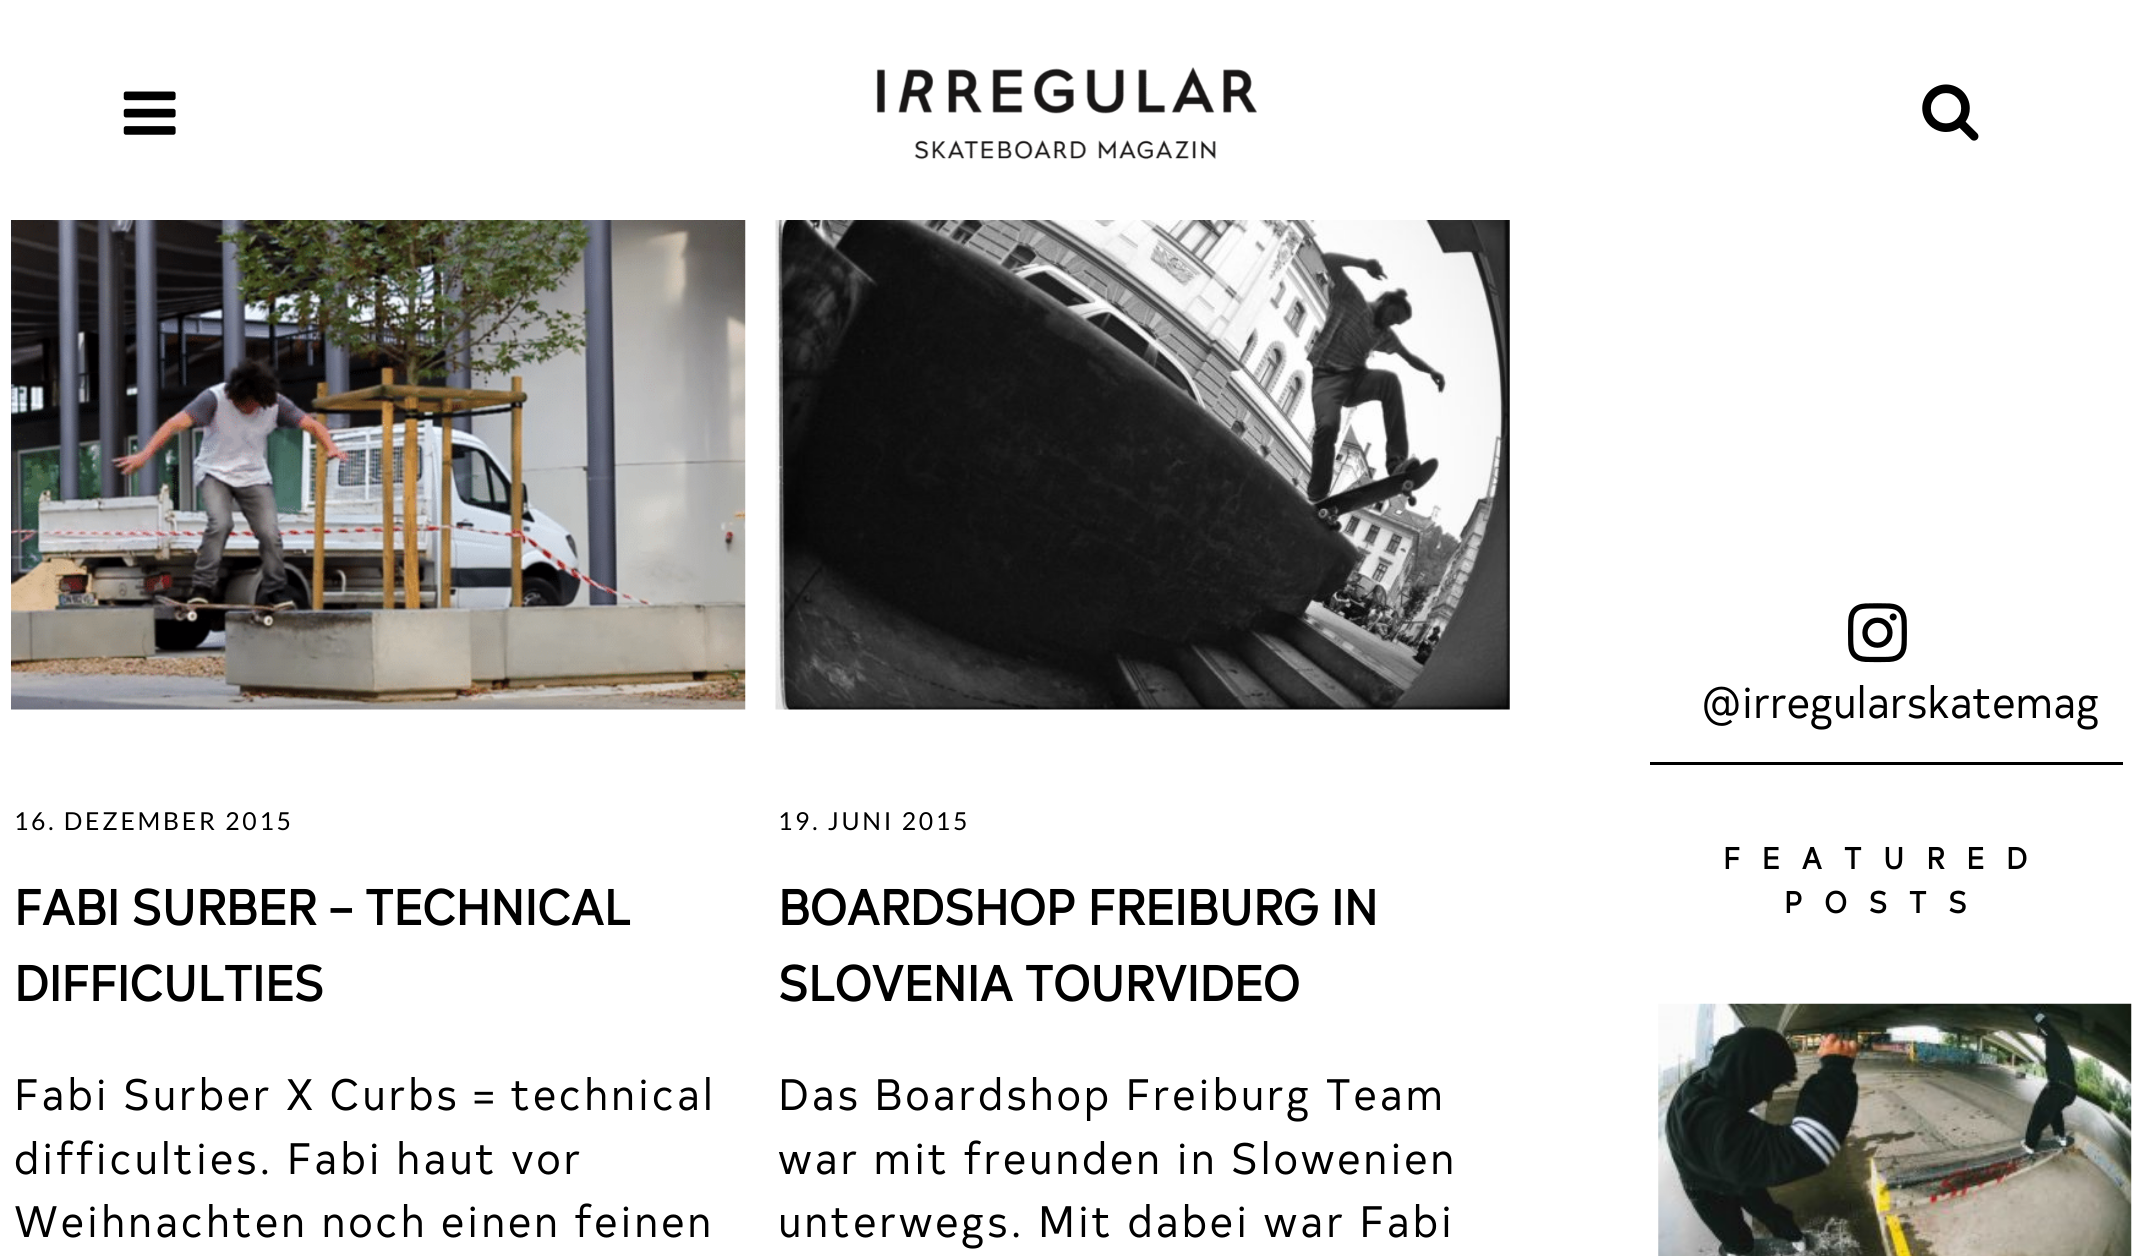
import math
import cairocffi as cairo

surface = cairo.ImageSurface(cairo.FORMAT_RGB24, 2133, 1256)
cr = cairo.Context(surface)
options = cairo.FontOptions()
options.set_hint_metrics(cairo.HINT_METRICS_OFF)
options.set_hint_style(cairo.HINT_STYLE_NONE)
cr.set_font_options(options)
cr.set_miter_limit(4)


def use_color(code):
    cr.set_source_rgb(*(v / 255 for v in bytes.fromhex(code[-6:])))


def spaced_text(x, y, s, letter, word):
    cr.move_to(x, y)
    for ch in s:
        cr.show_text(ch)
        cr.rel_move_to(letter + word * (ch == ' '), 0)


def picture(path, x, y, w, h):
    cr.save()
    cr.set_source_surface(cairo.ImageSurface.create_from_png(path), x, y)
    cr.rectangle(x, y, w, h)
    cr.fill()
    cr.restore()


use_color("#ffffff")
cr.paint()
picture("img1.png", 123, 91, 53, 44)
picture("img2.png", 876, 67, 381, 93)
picture("img3.png", 1922, 84, 57, 57)
picture("img4.png", 11, 220, 735, 490)
cr.select_font_face("Lato")
cr.set_font_size(24.75)
use_color("#000000")
spaced_text(14, 830, "16. DEZEMBER 2015", 2.75, 0)
cr.select_font_face("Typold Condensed", cairo.FONT_SLANT_NORMAL, cairo.FONT_WEIGHT_BOLD)
cr.set_font_size(49.5)
cr.move_to(14, 925)
cr.show_text("FABI SURBER – TECHNICAL")
cr.move_to(14, 1001)
cr.show_text("DIFFICULTIES")
cr.select_font_face("Typold Condensed")
cr.set_font_size(44)
spaced_text(14, 1110, "Fabi Surber X Curbs = technical", 2.75, 0)
spaced_text(14, 1174, "difficulties. Fabi haut vor", 2.75, 0)
spaced_text(14, 1237, "Weihnachten noch einen feinen", 2.75, 0)
picture("img5.png", 775, 220, 735, 490)
cr.select_font_face("Lato")
cr.set_font_size(24.75)
spaced_text(778, 830, "19. JUNI 2015", 2.75, 0)
cr.select_font_face("Typold Condensed", cairo.FONT_SLANT_NORMAL, cairo.FONT_WEIGHT_BOLD)
cr.set_font_size(49.5)
cr.move_to(778, 925)
cr.show_text("BOARDSHOP FREIBURG IN")
cr.move_to(778, 1001)
cr.show_text("SLOVENIA TOURVIDEO")
cr.select_font_face("Typold Condensed")
cr.set_font_size(44)
spaced_text(778, 1110, "Das Boardshop Freiburg Team", 2.75, 0)
spaced_text(778, 1174, "war mit freunden in Slowenien", 2.75, 0)
spaced_text(778, 1237, "unterwegs. Mit dabei war Fabi", 2.75, 0)
picture("img6.png", 1848, 603, 59, 60)
cr.move_to(1701, 718)
cr.show_text("@irregularskatemag")
cr.rectangle(1650, 762, 473, 3)
cr.fill()
cr.select_font_face("Typold Condensed", cairo.FONT_SLANT_NORMAL, cairo.FONT_WEIGHT_BOLD)
cr.set_font_size(30.25)
spaced_text(1723, 869, "FEATURED", 22, 0)
spaced_text(1784, 913, "POSTS", 22, 0)
picture("img7.png", 1658, 1003, 474, 253)
surface.write_to_png("result.png")
